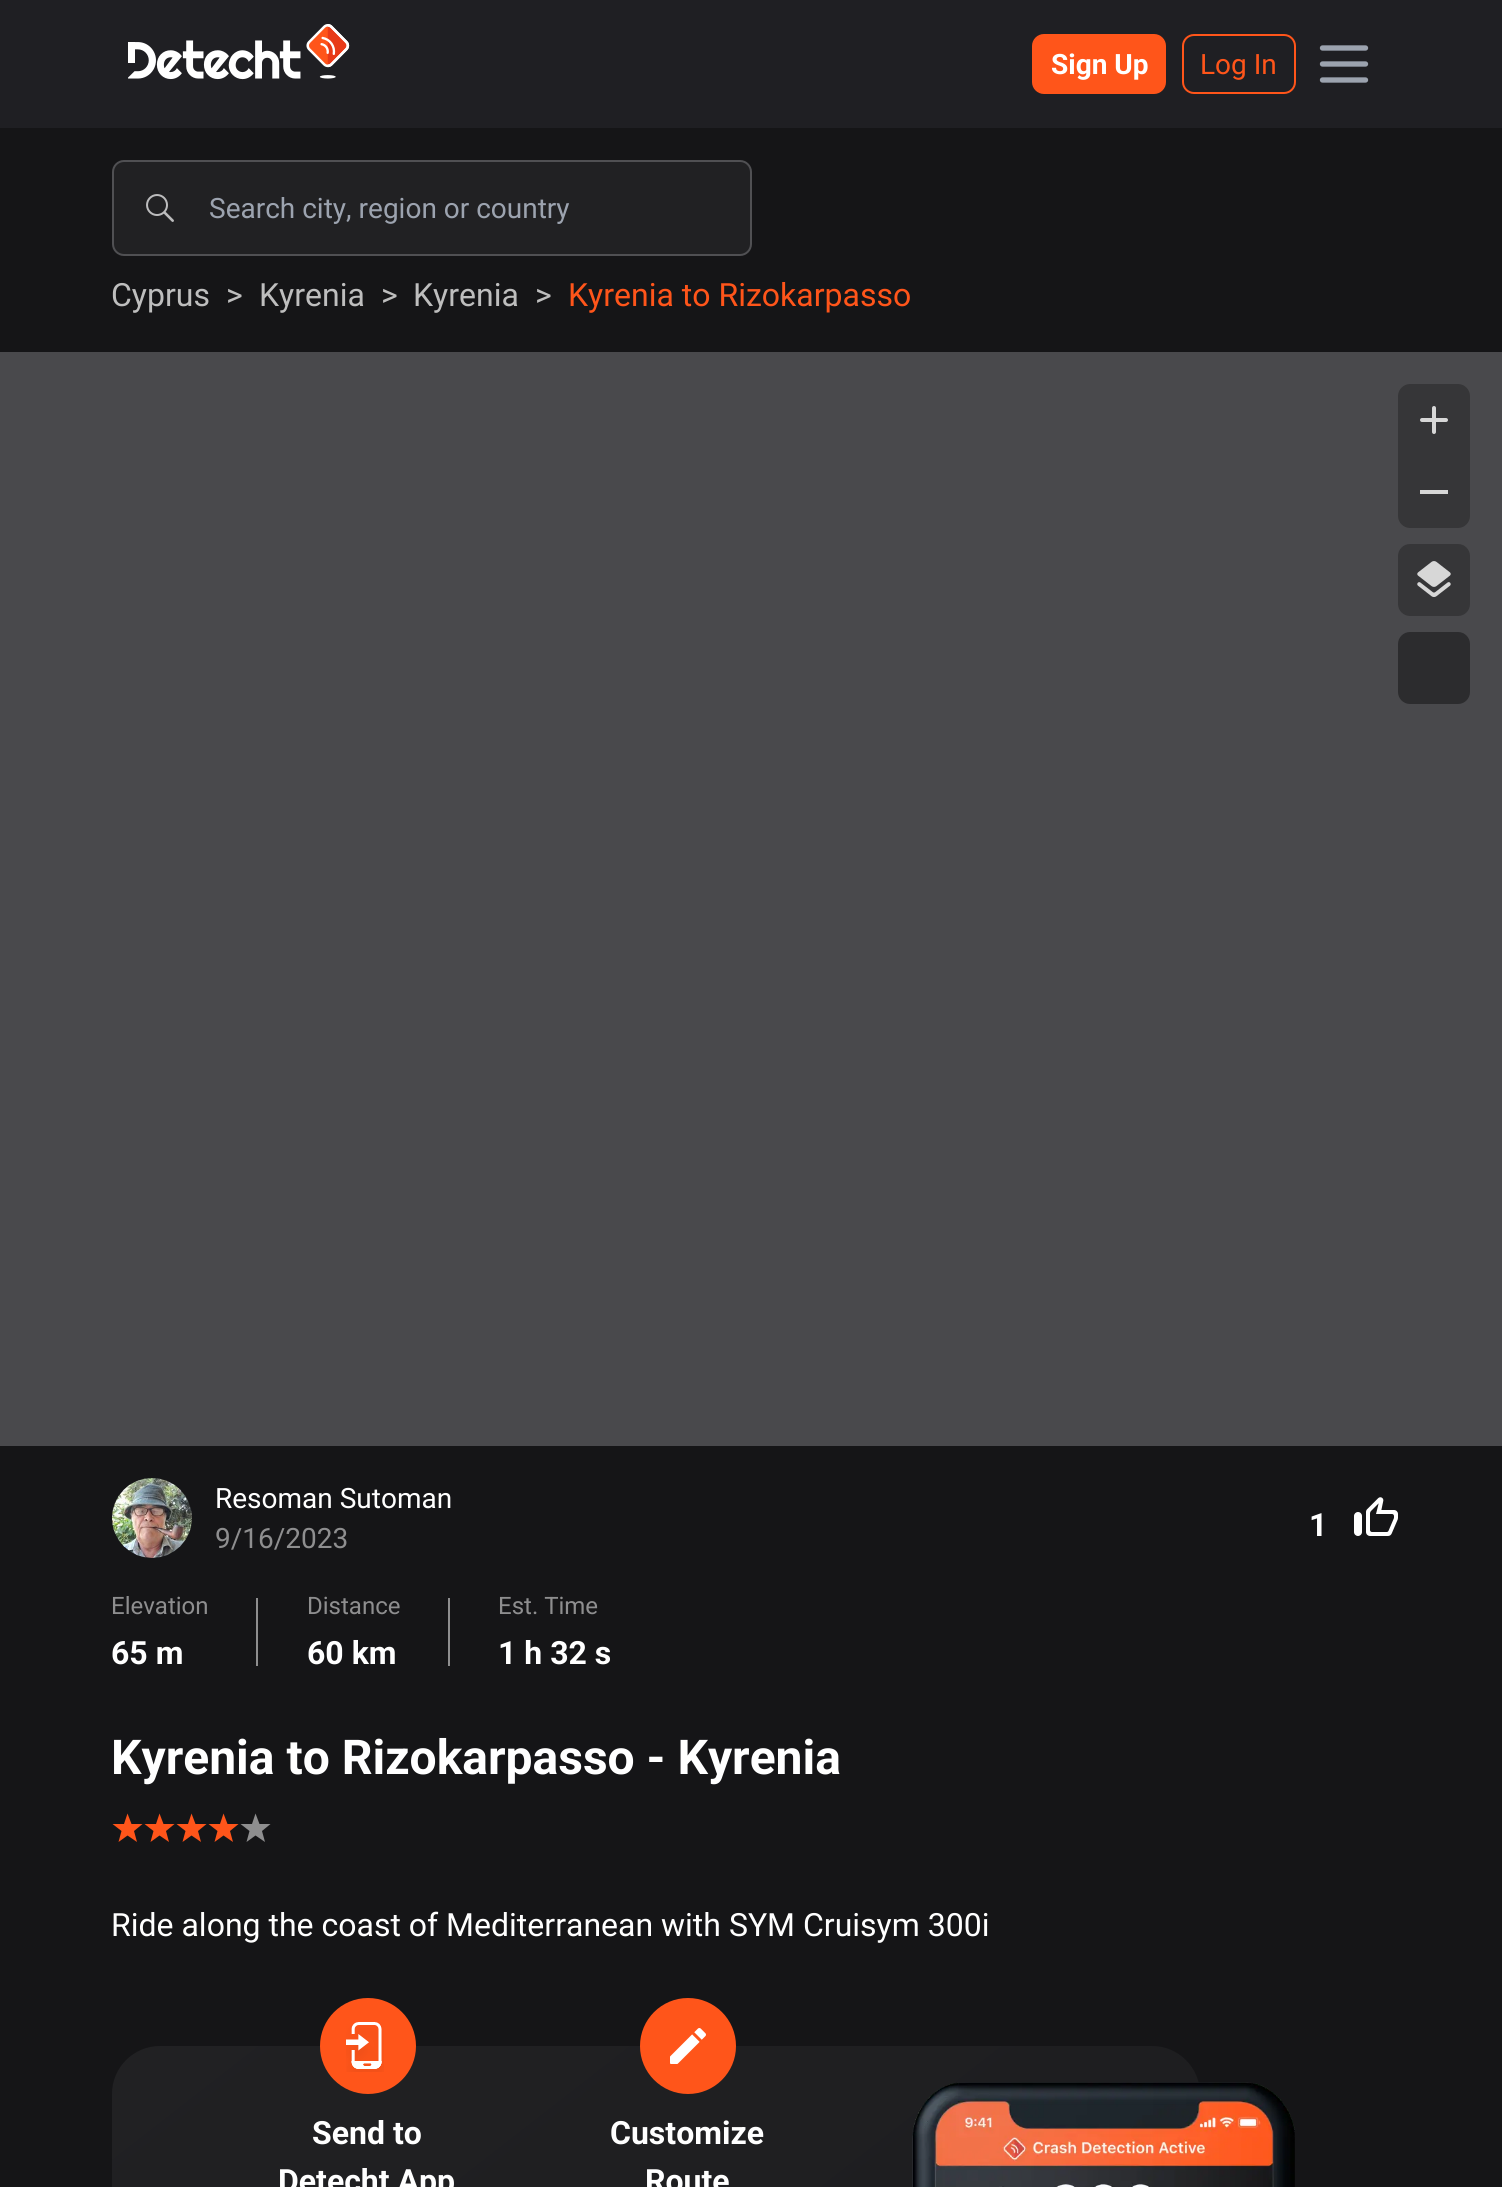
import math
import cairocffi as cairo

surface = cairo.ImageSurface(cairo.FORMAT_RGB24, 1502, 2187)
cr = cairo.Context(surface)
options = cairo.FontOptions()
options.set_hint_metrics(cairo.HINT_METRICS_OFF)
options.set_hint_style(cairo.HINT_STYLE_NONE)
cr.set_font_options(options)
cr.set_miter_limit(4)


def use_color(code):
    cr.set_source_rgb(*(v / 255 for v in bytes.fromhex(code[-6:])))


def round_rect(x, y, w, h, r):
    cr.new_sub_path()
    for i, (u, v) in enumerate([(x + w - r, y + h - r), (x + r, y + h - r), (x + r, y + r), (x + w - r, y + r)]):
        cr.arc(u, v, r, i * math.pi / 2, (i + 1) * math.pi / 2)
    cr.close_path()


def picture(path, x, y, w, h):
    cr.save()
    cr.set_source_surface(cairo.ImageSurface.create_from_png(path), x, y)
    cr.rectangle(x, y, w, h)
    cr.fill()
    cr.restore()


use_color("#151517")
cr.paint()
use_color("#1f1f23")
cr.rectangle(0, 0, 1502, 128)
cr.fill()
picture("img1.png", 128, 24, 222, 56)
use_color("#ff551a")
round_rect(1033, 35, 132, 58, 11)
cr.fill_preserve()
cr.stroke()
cr.select_font_face("Roboto", cairo.FONT_SLANT_NORMAL, cairo.FONT_WEIGHT_BOLD)
cr.set_font_size(28)
use_color("#ffffff")
cr.move_to(1051, 74)
cr.show_text("Sign Up")
round_rect(1183, 35, 112, 58, 11)
use_color("#ff551a")
cr.stroke()
cr.select_font_face("Roboto")
cr.move_to(1200, 74)
cr.show_text("Log In")
cr.new_path()
cr.move_to(1322.5, 48)
cr.line_to(1365.5, 48)
cr.move_to(1322.5, 64)
cr.line_to(1365.5, 64)
cr.move_to(1322.5, 80)
cr.line_to(1365.5, 80)
use_color("#9ca3af")
cr.set_line_width(5.3)
cr.set_line_cap(cairo.LINE_CAP_ROUND)
cr.set_line_join(cairo.LINE_JOIN_ROUND)
cr.stroke()
use_color("#212123")
round_rect(113, 161, 638, 94, 11)
cr.fill_preserve()
use_color("#505053")
cr.set_line_width(2)
cr.set_line_cap(cairo.LINE_CAP_BUTT)
cr.set_line_join(cairo.LINE_JOIN_MITER)
cr.stroke()
picture("img2.png", 146, 194, 28, 28)
use_color("#9ca3af")
cr.move_to(209, 218)
cr.show_text("Search city, region or country")
cr.set_font_size(32)
use_color("#bebebe")
cr.move_to(111, 306)
cr.show_text("Cyprus")
cr.move_to(226, 306)
cr.show_text(">")
cr.move_to(259, 306)
cr.show_text("Kyrenia")
cr.move_to(381, 306)
cr.show_text(">")
cr.move_to(413, 306)
cr.show_text("Kyrenia")
cr.move_to(535, 306)
cr.show_text(">")
use_color("#ff551a")
cr.move_to(568, 306)
cr.show_text("Kyrenia to Rizokarpasso")
use_color("#49494c")
cr.rectangle(0, 352, 1502, 1094)
cr.fill()
use_color("#363638")
cr.new_path()
cr.move_to(1410, 384)
cr.line_to(1458, 384)
cr.curve_to(1464.5, 384, 1470, 389.5, 1470, 396)
cr.line_to(1470, 456)
cr.line_to(1398, 456)
cr.line_to(1398, 396)
cr.curve_to(1398, 389.5, 1403.5, 384, 1410, 384)
cr.close_path()
cr.fill()
picture("img3.png", 1420, 406, 28, 28)
cr.new_path()
cr.move_to(1398, 456)
cr.line_to(1470, 456)
cr.line_to(1470, 516)
cr.curve_to(1470, 522.5, 1464.5, 528, 1458, 528)
cr.line_to(1410, 528)
cr.curve_to(1403.5, 528, 1398, 522.5, 1398, 516)
cr.close_path()
cr.fill()
use_color("#d7d7d7")
cr.rectangle(1420, 490, 28, 4)
cr.fill()
use_color("#363638")
round_rect(1398, 544, 72, 72, 12)
cr.fill()
picture("img4.png", 1417, 561, 34, 36)
use_color("#2c2c2e")
round_rect(1398, 632, 72, 72, 12)
cr.fill()
picture("img5.png", 112, 1478, 80, 80)
cr.set_font_size(28)
use_color("#ffffff")
cr.move_to(215, 1508)
cr.show_text("Resoman Sutoman")
use_color("#8e8e8f")
cr.move_to(215, 1548)
cr.show_text("9/16/2023")
cr.select_font_face("Roboto", cairo.FONT_SLANT_NORMAL, cairo.FONT_WEIGHT_BOLD)
cr.set_font_size(32)
use_color("#ffffff")
cr.move_to(1309, 1536)
cr.show_text("1")
picture("img6.png", 1354, 1497, 44, 39)
cr.select_font_face("Roboto")
cr.set_font_size(24)
use_color("#8e8e8f")
cr.move_to(111, 1614)
cr.show_text("Elevation")
cr.select_font_face("Roboto", cairo.FONT_SLANT_NORMAL, cairo.FONT_WEIGHT_BOLD)
cr.set_font_size(32)
use_color("#ffffff")
cr.move_to(111, 1664)
cr.show_text("65 m")
use_color("#8e8e8f")
cr.rectangle(256, 1598, 2, 68)
cr.fill()
cr.select_font_face("Roboto")
cr.set_font_size(24)
cr.move_to(307, 1614)
cr.show_text("Distance")
cr.select_font_face("Roboto", cairo.FONT_SLANT_NORMAL, cairo.FONT_WEIGHT_BOLD)
cr.set_font_size(32)
use_color("#ffffff")
cr.move_to(307, 1664)
cr.show_text("60 km")
use_color("#8e8e8f")
cr.rectangle(448, 1598, 2, 68)
cr.fill()
cr.select_font_face("Roboto")
cr.set_font_size(24)
cr.move_to(498, 1614)
cr.show_text("Est. Time")
cr.select_font_face("Roboto", cairo.FONT_SLANT_NORMAL, cairo.FONT_WEIGHT_BOLD)
cr.set_font_size(32)
use_color("#ffffff")
cr.move_to(498, 1664)
cr.show_text("1 h 32 s")
cr.set_font_size(48)
cr.move_to(111, 1774)
cr.show_text("Kyrenia to Rizokarpasso - Kyrenia")
use_color("#ff551a")
cr.new_path()
cr.move_to(127.5, 1813.5)
cr.line_to(131.5, 1824)
cr.line_to(142.5, 1824)
cr.line_to(134, 1831)
cr.line_to(137, 1842)
cr.line_to(127.5, 1835.5)
cr.line_to(118.5, 1842)
cr.line_to(121.5, 1831)
cr.line_to(112.5, 1824)
cr.line_to(124, 1824)
cr.close_path()
cr.move_to(159.5, 1813.5)
cr.line_to(163.5, 1824)
cr.line_to(174.5, 1824)
cr.line_to(166, 1831)
cr.line_to(169, 1842)
cr.line_to(159.5, 1835.5)
cr.line_to(150.5, 1842)
cr.line_to(153.5, 1831)
cr.line_to(144.5, 1824)
cr.line_to(156, 1824)
cr.close_path()
cr.fill()
cr.new_path()
cr.move_to(191.5, 1813.5)
cr.line_to(195.5, 1824)
cr.line_to(206.5, 1824)
cr.line_to(198, 1831)
cr.line_to(201, 1842)
cr.line_to(191.5, 1835.5)
cr.line_to(182.5, 1842)
cr.line_to(185.5, 1831)
cr.line_to(176.5, 1824)
cr.line_to(188, 1824)
cr.close_path()
cr.move_to(223.5, 1813.5)
cr.line_to(227.5, 1824)
cr.line_to(238.5, 1824)
cr.line_to(230, 1831)
cr.line_to(233, 1842)
cr.line_to(223.5, 1835.5)
cr.line_to(214.5, 1842)
cr.line_to(217.5, 1831)
cr.line_to(208.5, 1824)
cr.line_to(220, 1824)
cr.close_path()
cr.fill()
use_color("#8e8e8f")
cr.new_path()
cr.move_to(255.5, 1813.5)
cr.line_to(259.5, 1824)
cr.line_to(270.5, 1824)
cr.line_to(262, 1831)
cr.line_to(265, 1842)
cr.line_to(255.5, 1835.5)
cr.line_to(246.5, 1842)
cr.line_to(249.5, 1831)
cr.line_to(240.5, 1824)
cr.line_to(252, 1824)
cr.close_path()
cr.fill()
cr.select_font_face("Roboto")
cr.set_font_size(32)
use_color("#ffffff")
cr.move_to(111, 1936)
cr.show_text("Ride along the coast of Mediterranean with SYM Cruisym 300i")
gradient = cairo.LinearGradient(245, 1942, 1067, 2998)
gradient.add_color_stop_rgba(0, 0.129, 0.129, 0.137, 1)
gradient.add_color_stop_rgba(1, 0.106, 0.106, 0.114, 1)
cr.set_source(gradient)
round_rect(112, 2046, 1088, 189, 48)
cr.fill()
use_color("#ff551a")
cr.arc(368, 2046, 48, 0, 2 * math.pi)
cr.fill()
picture("img7.png", 346, 2022, 38, 50)
cr.select_font_face("Roboto", cairo.FONT_SLANT_NORMAL, cairo.FONT_WEIGHT_BOLD)
use_color("#ffffff")
cr.move_to(312, 2144)
cr.show_text("Send to")
cr.move_to(278, 2192)
cr.show_text("Detecht App")
use_color("#ff551a")
cr.new_path()
cr.arc(688, 2046, 48, 0, 2 * math.pi)
cr.fill()
picture("img8.png", 670, 2028, 36, 36)
use_color("#ffffff")
cr.move_to(610, 2144)
cr.show_text("Customize")
cr.move_to(645, 2192)
cr.show_text("Route")
picture("img9.png", 912, 2082, 383, 105)
surface.write_to_png("result.png")
